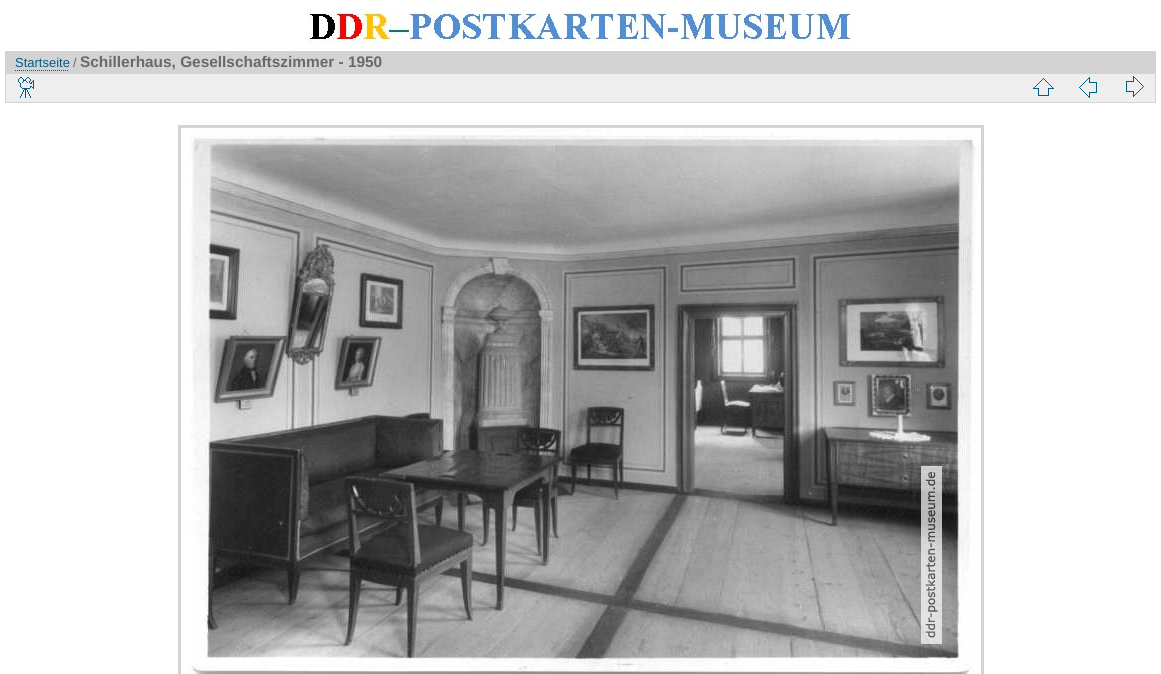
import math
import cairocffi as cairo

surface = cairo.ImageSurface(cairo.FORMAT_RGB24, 1161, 674)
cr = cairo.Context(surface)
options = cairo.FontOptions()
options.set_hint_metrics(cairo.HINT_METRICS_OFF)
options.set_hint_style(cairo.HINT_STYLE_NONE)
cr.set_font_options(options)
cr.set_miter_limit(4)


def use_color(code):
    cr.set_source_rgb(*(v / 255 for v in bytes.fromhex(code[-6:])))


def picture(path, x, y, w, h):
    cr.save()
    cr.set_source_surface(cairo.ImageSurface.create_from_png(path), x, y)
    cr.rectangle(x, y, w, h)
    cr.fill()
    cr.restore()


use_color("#ffffff")
cr.paint()
picture("img1.png", 307, 5, 552, 43)
use_color("#d3d3d3")
cr.rectangle(5, 51, 1151, 22)
cr.fill()
cr.select_font_face("Liberation Sans")
cr.set_font_size(13)
use_color("#005e89")
cr.move_to(15, 67)
cr.show_text("Startseite")
cr.new_path()
cr.move_to(15, 70.5)
cr.line_to(69, 70.5)
cr.set_line_width(1)
cr.set_dash([1, 1])
cr.stroke()
use_color("#696969")
cr.move_to(73, 67)
cr.show_text("/")
cr.select_font_face("Liberation Sans", cairo.FONT_SLANT_NORMAL, cairo.FONT_WEIGHT_BOLD)
cr.set_font_size(15.4)
cr.move_to(80, 67)
cr.show_text("Schillerhaus, Gesellschaftszimmer - 1950")
use_color("#eeeeee")
cr.rectangle(5.5, 73.5, 1150, 29)
cr.fill_preserve()
use_color("#d3d3d3")
cr.set_dash([])
cr.stroke()
picture("img2.png", 18, 77, 16, 21)
picture("img3.png", 1033, 78, 21, 18)
picture("img4.png", 1079, 77, 18, 21)
picture("img5.png", 1126, 76, 18, 21)
cr.rectangle(179.5, 126.5, 803, 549)
cr.set_line_width(3)
cr.stroke()
picture("img6.png", 189, 128, 790, 546)
surface.write_to_png("result.png")
